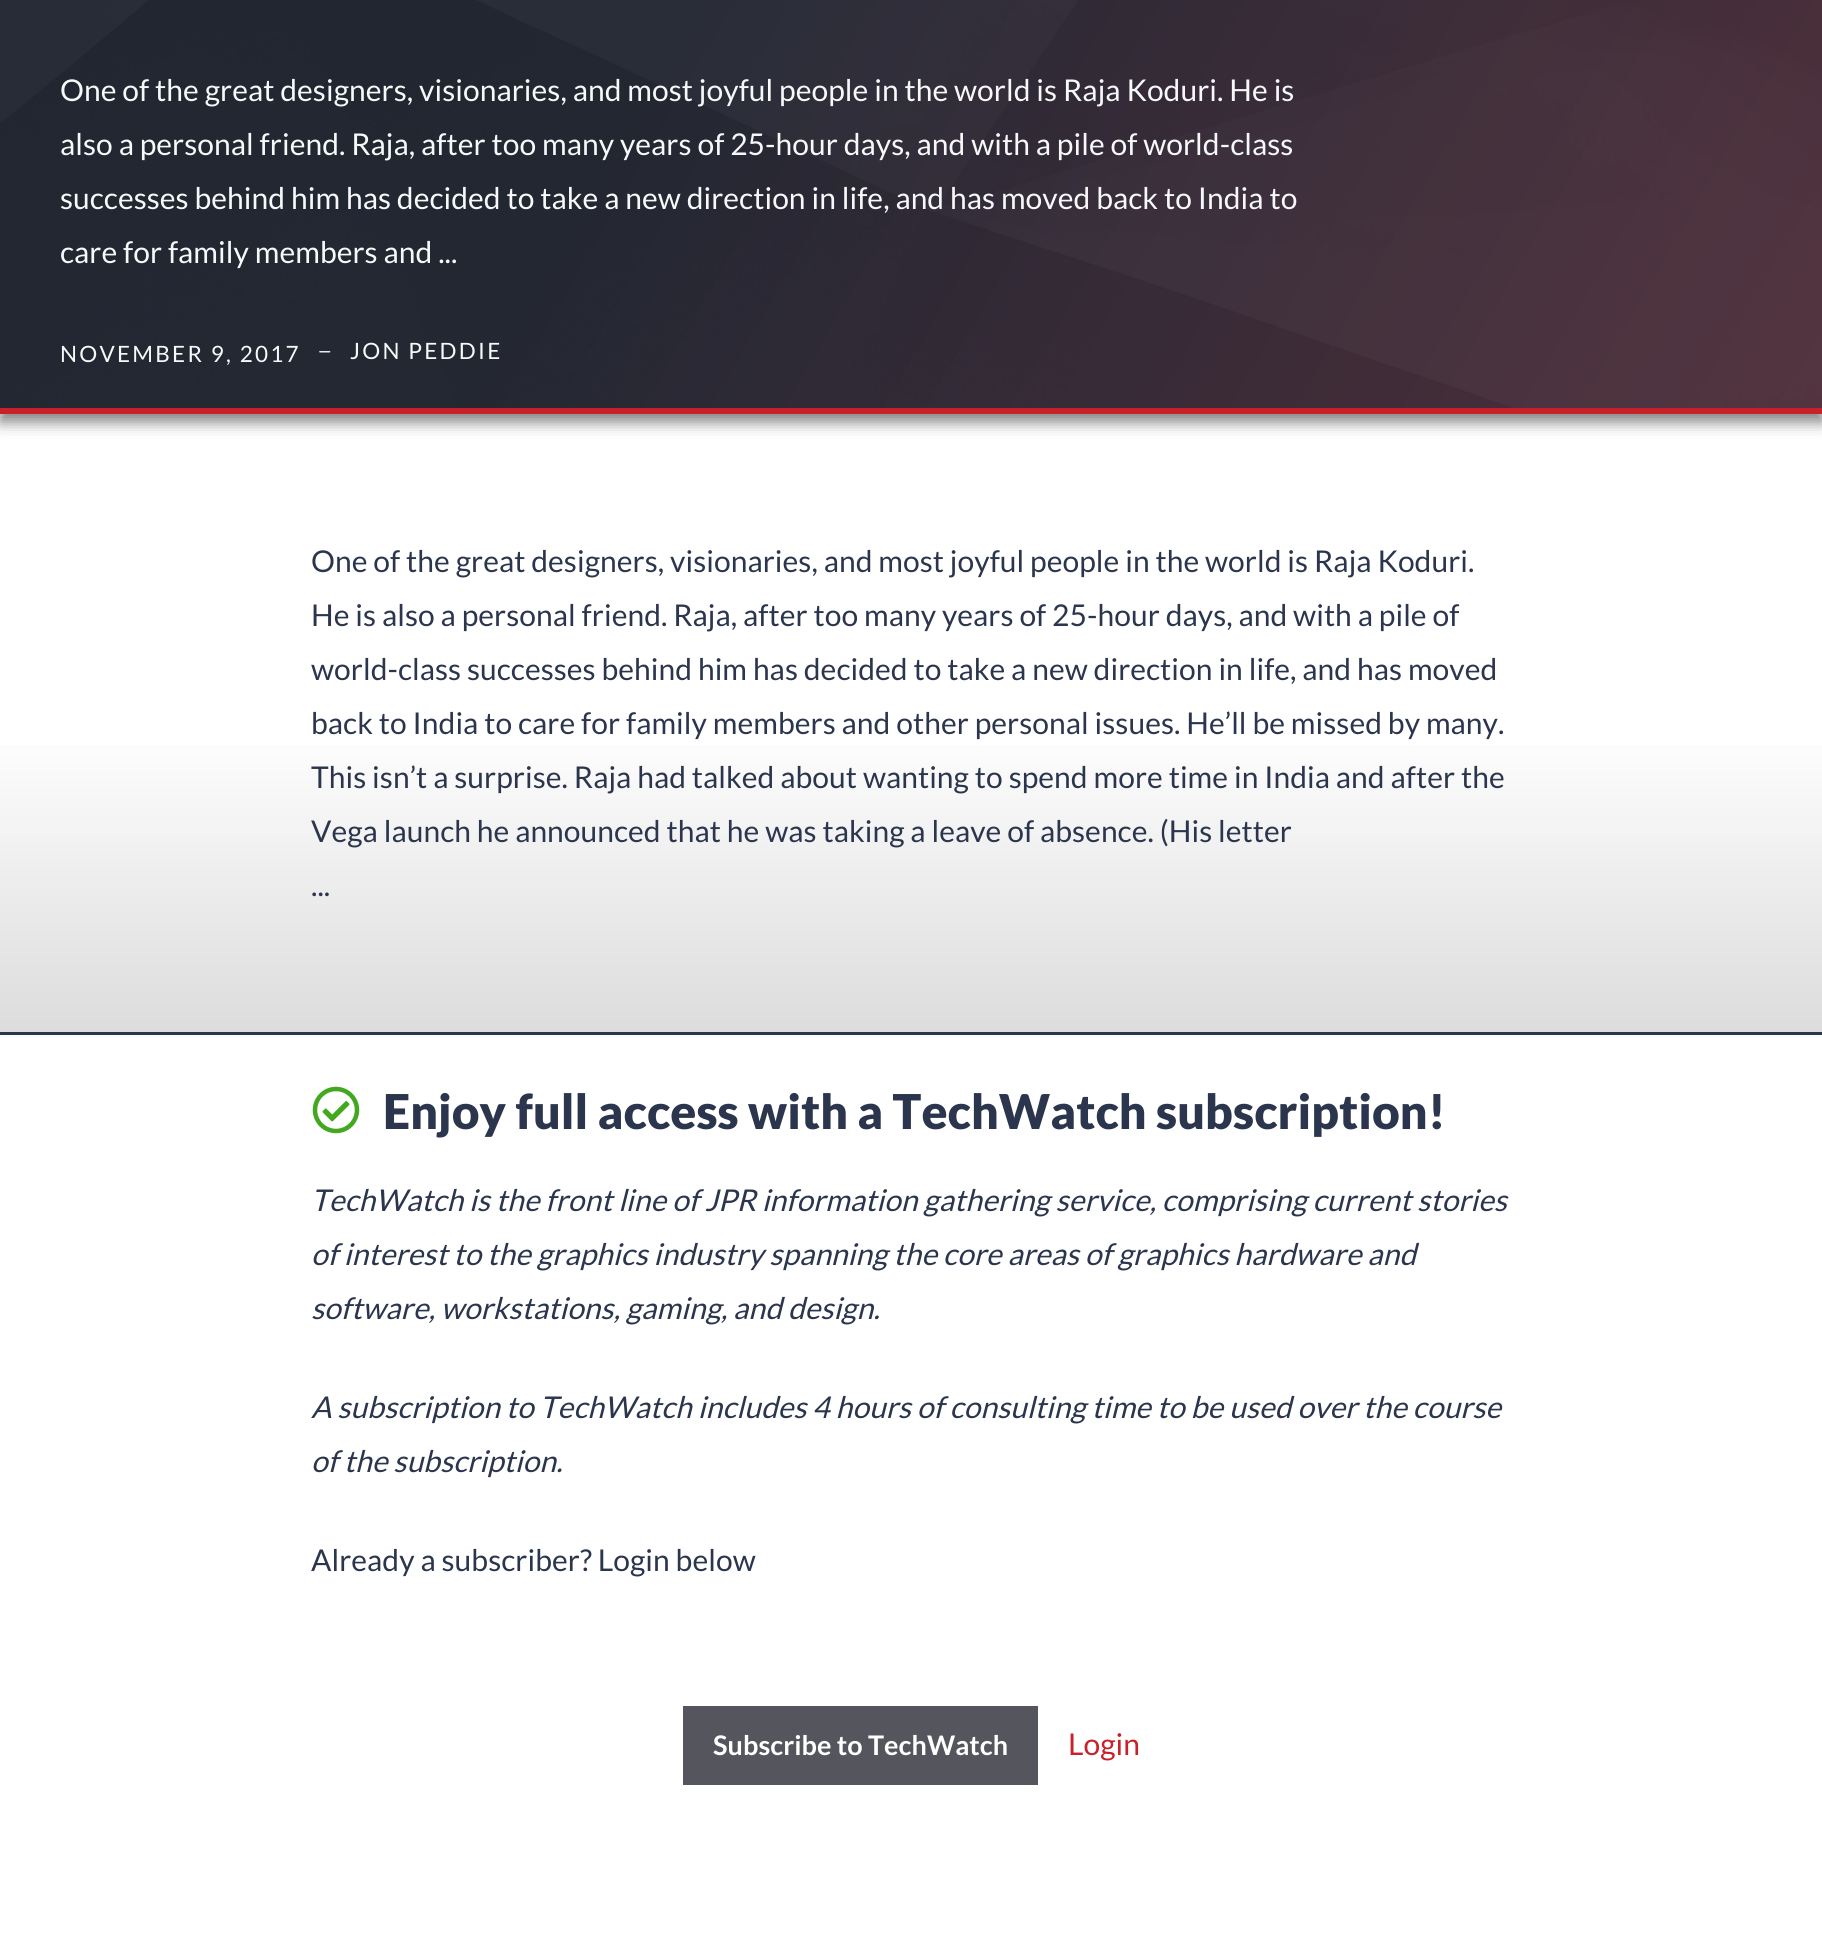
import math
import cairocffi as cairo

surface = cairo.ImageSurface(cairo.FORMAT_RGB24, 1822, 1949)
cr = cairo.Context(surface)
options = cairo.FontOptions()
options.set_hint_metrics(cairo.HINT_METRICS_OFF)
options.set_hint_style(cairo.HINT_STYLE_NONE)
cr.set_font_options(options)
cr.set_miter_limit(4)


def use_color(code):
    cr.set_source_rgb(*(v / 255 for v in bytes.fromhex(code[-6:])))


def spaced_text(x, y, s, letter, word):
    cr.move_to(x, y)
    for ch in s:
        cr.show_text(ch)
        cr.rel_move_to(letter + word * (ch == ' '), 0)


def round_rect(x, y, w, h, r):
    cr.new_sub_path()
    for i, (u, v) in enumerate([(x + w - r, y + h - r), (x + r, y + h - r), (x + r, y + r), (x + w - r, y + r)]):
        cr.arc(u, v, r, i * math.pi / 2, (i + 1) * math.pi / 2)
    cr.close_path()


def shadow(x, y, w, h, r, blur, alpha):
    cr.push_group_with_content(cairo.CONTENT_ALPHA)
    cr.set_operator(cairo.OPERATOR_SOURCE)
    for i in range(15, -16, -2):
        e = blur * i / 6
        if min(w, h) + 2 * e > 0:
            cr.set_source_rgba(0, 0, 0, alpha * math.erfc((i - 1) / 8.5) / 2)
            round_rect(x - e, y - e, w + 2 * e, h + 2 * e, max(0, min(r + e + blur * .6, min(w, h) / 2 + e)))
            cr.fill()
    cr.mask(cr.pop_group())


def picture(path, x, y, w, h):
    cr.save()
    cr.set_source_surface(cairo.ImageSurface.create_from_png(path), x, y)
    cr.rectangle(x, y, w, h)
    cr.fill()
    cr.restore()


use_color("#ffffff")
cr.paint()
use_color("#000000")
shadow(0, -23, 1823, 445, 0, 7.5, 0.5)
gradient = cairo.LinearGradient(57, -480, 1766, 507)
gradient.add_color_stop_rgba(0.4, 0.086, 0.106, 0.153, 1)
gradient.add_color_stop_rgba(1, 0.275, 0.137, 0.192, 1)
cr.set_source(gradient)
cr.rectangle(0, 0, 1822, 408)
cr.fill()
use_color("#c8212a")
cr.rectangle(0, 408, 1822, 6)
cr.fill()
picture("img1.png", 0, 0, 1822, 408)
cr.select_font_face("Lato")
cr.set_font_size(30)
use_color("#f7f8f9")
spaced_text(60, 101, "One of the great designers, visionaries, and most joyful people in the world is Raja Koduri. He is", 0.05, 0)
spaced_text(60, 155, "also a personal friend. Raja, after too many years of 25-hour days, and with a pile of world-class", 0.05, 0)
spaced_text(60, 209, "successes behind him has decided to take a new direction in life, and has moved back to India to", 0.05, 0)
spaced_text(60, 263, "care for family members and ...", 0.05, 0)
cr.set_font_size(22.5)
spaced_text(60, 362, "NOVEMBER 9, 2017", 2.25, 0)
picture("img2.png", 319, 351, 12, 2)
spaced_text(350, 359, "JON PEDDIE", 2.25, 0)
gradient = cairo.LinearGradient(911, 414, 911, 1032)
gradient.add_color_stop_rgba(0.5, 1, 1, 1, 1)
gradient.add_color_stop_rgba(1, 0.863, 0.863, 0.863, 1)
cr.set_source(gradient)
cr.rectangle(0, 745, 1822, 287)
cr.fill()
use_color("#2b364e")
cr.rectangle(0, 1032, 1822, 3)
cr.fill()
cr.set_font_size(30)
spaced_text(311, 572, "One of the great designers, visionaries, and most joyful people in the world is Raja Koduri.", 0.05, 0)
spaced_text(311, 626, "He is also a personal friend. Raja, after too many years of 25-hour days, and with a pile of", 0.05, 0)
spaced_text(311, 680, "world-class successes behind him has decided to take a new direction in life, and has moved", 0.05, 0)
spaced_text(311, 734, "back to India to care for family members and other personal issues. He’ll be missed by many.", 0.05, 0)
spaced_text(311, 788, "This isn’t a surprise. Raja had talked about wanting to spend more time in India and after the", 0.05, 0)
spaced_text(311, 842, "Vega launch he announced that he was taking a leave of absence. (His letter", 0.05, 0)
spaced_text(311, 896, "...", 0.05, 0)
picture("img3.png", 312, 1086, 48, 48)
cr.select_font_face("Lato Black")
cr.set_font_size(48)
spaced_text(383, 1129, "Enjoy full access with a TechWatch subscription!", 0.05, 0)
cr.select_font_face("Lato", cairo.FONT_SLANT_ITALIC)
cr.set_font_size(30)
spaced_text(311, 1211, "TechWatch is the front line of JPR information gathering service, comprising current stories", 0.05, 0)
spaced_text(311, 1265, "of interest to the graphics industry spanning the core areas of graphics hardware and", 0.05, 0)
spaced_text(311, 1319, "software, workstations, gaming, and design.", 0.05, 0)
spaced_text(311, 1418, "A subscription to TechWatch includes 4 hours of consulting time to be used over the course", 0.05, 0)
spaced_text(311, 1472, "of the subscription.", 0.05, 0)
cr.select_font_face("Lato")
spaced_text(311, 1571, "Already a subscriber? Login below", 0.05, 0)
use_color("#55555e")
cr.rectangle(683, 1706, 355, 79)
cr.fill()
cr.select_font_face("Lato", cairo.FONT_SLANT_NORMAL, cairo.FONT_WEIGHT_BOLD)
cr.set_font_size(27)
use_color("#ffffff")
spaced_text(713, 1755, "Subscribe to TechWatch", 0.05, 0)
cr.select_font_face("Lato")
cr.set_font_size(30)
use_color("#c8212a")
spaced_text(1068, 1755, "Login", 0.05, 0)
surface.write_to_png("result.png")
